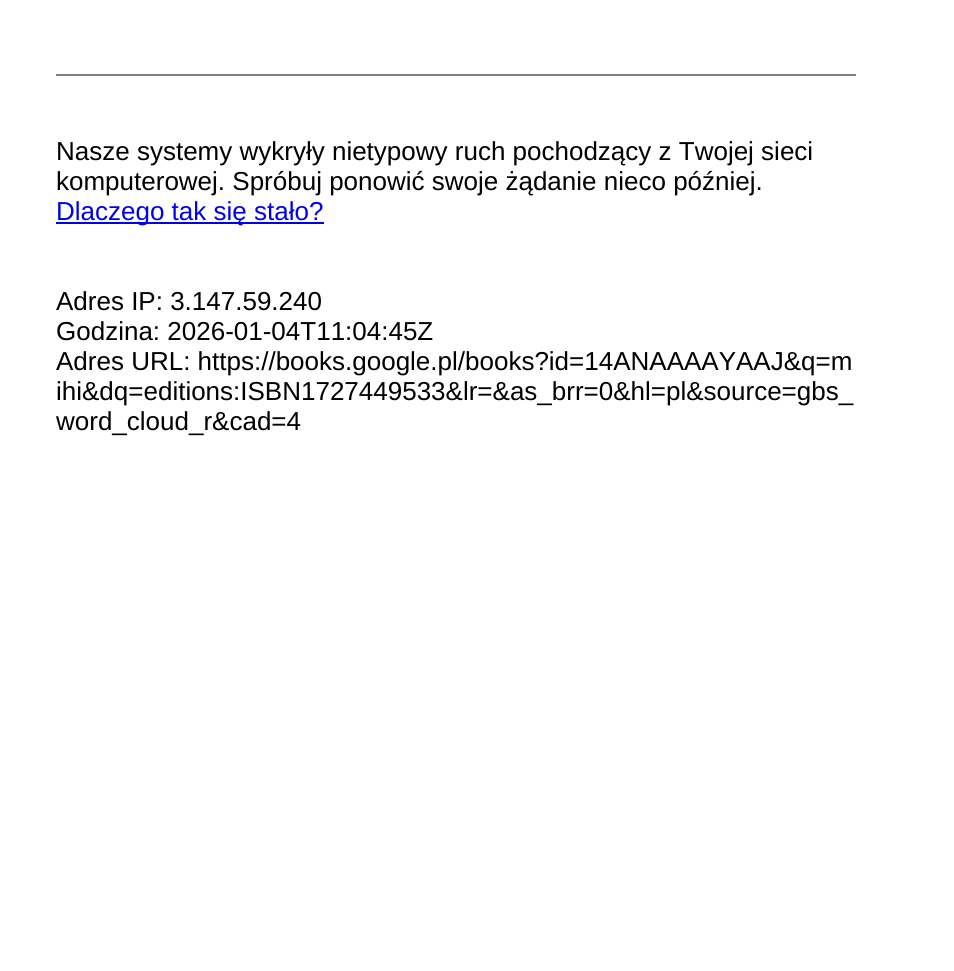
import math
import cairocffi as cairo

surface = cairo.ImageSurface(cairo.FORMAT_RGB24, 954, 971)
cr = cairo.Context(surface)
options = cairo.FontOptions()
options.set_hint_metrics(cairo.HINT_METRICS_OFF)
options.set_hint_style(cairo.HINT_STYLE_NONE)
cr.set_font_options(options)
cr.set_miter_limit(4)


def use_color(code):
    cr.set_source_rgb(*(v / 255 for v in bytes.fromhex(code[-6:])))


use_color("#ffffff")
cr.paint()
use_color("#808080")
cr.rectangle(56, 74, 800, 2)
cr.fill()
cr.select_font_face("Liberation Sans")
cr.set_font_size(26)
use_color("#000000")
cr.move_to(56, 160)
cr.show_text("Nasze systemy wykryły nietypowy ruch pochodzący z Twojej sieci")
cr.move_to(56, 190)
cr.show_text("komputerowej. Spróbuj ponowić swoje żądanie nieco później.")
use_color("#0000ee")
cr.rectangle(56, 222, 268, 2)
cr.fill()
cr.move_to(56, 220)
cr.show_text("Dlaczego tak się stało?")
use_color("#000000")
cr.move_to(56, 310)
cr.show_text("Adres IP: 3.147.59.240")
cr.move_to(56, 340)
cr.show_text("Godzina: 2026-01-04T11:04:45Z")
cr.move_to(56, 370)
cr.show_text("Adres URL: https://books.google.pl/books?id=14ANAAAAYAAJ&q=m")
cr.move_to(56, 400)
cr.show_text("ihi&dq=editions:ISBN1727449533&lr=&as_brr=0&hl=pl&source=gbs_")
cr.move_to(56, 430)
cr.show_text("word_cloud_r&cad=4")
surface.write_to_png("result.png")
